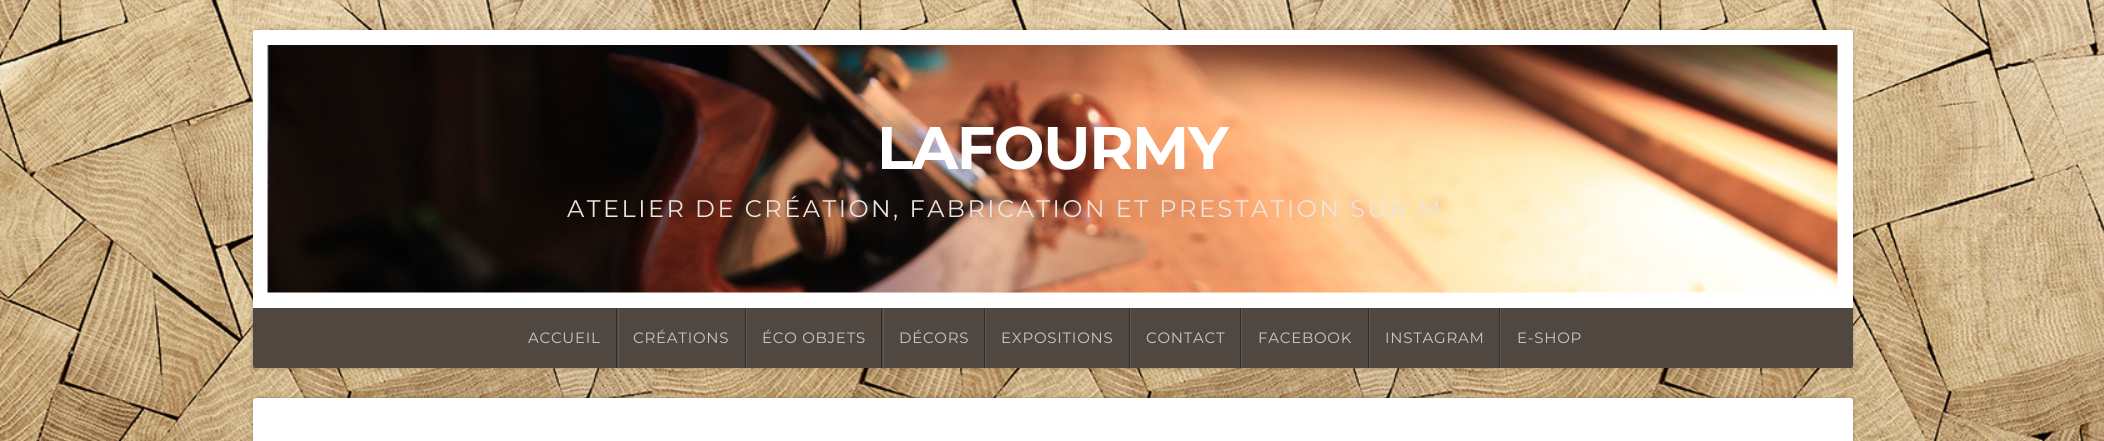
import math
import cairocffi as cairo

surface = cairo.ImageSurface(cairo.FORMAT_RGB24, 2104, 441)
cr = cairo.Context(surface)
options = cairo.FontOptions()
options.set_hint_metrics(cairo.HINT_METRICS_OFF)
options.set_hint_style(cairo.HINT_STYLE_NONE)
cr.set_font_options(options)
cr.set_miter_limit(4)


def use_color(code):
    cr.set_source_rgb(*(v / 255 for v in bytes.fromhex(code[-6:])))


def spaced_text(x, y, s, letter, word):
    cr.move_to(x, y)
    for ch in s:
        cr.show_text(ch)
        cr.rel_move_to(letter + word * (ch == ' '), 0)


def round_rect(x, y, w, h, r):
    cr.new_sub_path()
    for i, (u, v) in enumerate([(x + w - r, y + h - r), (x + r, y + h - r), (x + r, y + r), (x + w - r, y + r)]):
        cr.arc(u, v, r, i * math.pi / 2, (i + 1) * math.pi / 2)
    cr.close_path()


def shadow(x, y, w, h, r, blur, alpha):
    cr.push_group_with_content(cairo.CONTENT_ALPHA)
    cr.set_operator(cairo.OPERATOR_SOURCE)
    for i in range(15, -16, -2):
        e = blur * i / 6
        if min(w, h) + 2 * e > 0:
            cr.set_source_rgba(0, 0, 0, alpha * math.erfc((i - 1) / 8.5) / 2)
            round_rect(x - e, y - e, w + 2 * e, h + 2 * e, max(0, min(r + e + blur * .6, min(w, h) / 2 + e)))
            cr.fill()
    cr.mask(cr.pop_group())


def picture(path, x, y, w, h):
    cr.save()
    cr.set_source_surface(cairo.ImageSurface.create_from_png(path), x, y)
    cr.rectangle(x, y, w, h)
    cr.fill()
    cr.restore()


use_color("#ffffff")
cr.paint()
picture("img1.png", 0, 0, 2104, 441)
use_color("#000000")
shadow(253, 30, 1600, 338, 2.5, 2.5, 0.24)
use_color("#ffffff")
cr.new_path()
cr.move_to(255.5, 30)
cr.line_to(1850.5, 30)
cr.curve_to(1852, 30, 1853, 31, 1853, 32.5)
cr.line_to(1853, 308)
cr.line_to(253, 308)
cr.line_to(253, 32.5)
cr.curve_to(253, 31, 254, 30, 255.5, 30)
cr.close_path()
cr.fill()
picture("img2.png", 267, 45, 1571, 248)
cr.select_font_face("Montserrat", cairo.FONT_SLANT_NORMAL, cairo.FONT_WEIGHT_BOLD)
cr.set_font_size(60)
spaced_text(877, 169, "LAFOURMY", -1.25, 0)
cr.select_font_face("Montserrat")
cr.set_font_size(24)
use_color("#ece4dd")
spaced_text(567, 217, "ATELIER DE CRÉATION, FABRICATION ET PRESTATION SUR M", 2.5, 0)
use_color("#504741")
cr.new_path()
cr.move_to(253, 308)
cr.line_to(1853, 308)
cr.line_to(1853, 365.5)
cr.curve_to(1853, 367, 1852, 368, 1850.5, 368)
cr.line_to(255.5, 368)
cr.curve_to(254, 368, 253, 367, 253, 365.5)
cr.close_path()
cr.fill()
use_color("#302b27")
cr.rectangle(616, 309, 1, 59)
cr.fill()
cr.set_font_size(15)
use_color("#cbc8c6")
spaced_text(528, 343, "ACCUEIL", 0.75, 0)
use_color("#302b27")
cr.rectangle(745, 308, 1, 60)
cr.fill()
use_color("#625954")
cr.rectangle(618, 308, 1, 60)
cr.fill()
use_color("#cbc8c6")
spaced_text(633, 343, "CRÉATIONS", 0.75, 0)
use_color("#302b27")
cr.rectangle(881, 308, 1, 60)
cr.fill()
use_color("#625954")
cr.rectangle(746, 308, 1, 60)
cr.fill()
use_color("#cbc8c6")
spaced_text(762, 343, "ÉCO OBJETS", 0.75, 0)
use_color("#302b27")
cr.rectangle(984, 308, 1, 60)
cr.fill()
use_color("#625954")
cr.rectangle(883, 308, 1, 60)
cr.fill()
use_color("#cbc8c6")
spaced_text(899, 343, "DÉCORS", 0.75, 0)
use_color("#302b27")
cr.rectangle(1129, 308, 1, 60)
cr.fill()
use_color("#625954")
cr.rectangle(985, 308, 1, 60)
cr.fill()
use_color("#cbc8c6")
spaced_text(1001, 343, "EXPOSITIONS", 0.75, 0)
use_color("#302b27")
cr.rectangle(1240, 308, 1, 60)
cr.fill()
use_color("#625954")
cr.rectangle(1130, 308, 1, 60)
cr.fill()
use_color("#cbc8c6")
spaced_text(1146, 343, "CONTACT", 0.75, 0)
use_color("#302b27")
cr.rectangle(1368, 308, 1, 60)
cr.fill()
use_color("#625954")
cr.rectangle(1241, 308, 1, 60)
cr.fill()
use_color("#cbc8c6")
spaced_text(1258, 343, "FACEBOOK", 0.75, 0)
use_color("#302b27")
cr.rectangle(1499, 308, 1, 60)
cr.fill()
use_color("#625954")
cr.rectangle(1369, 308, 1, 60)
cr.fill()
use_color("#cbc8c6")
spaced_text(1385, 343, "INSTAGRAM", 0.75, 0)
use_color("#625954")
cr.rectangle(1500, 308, 1, 60)
cr.fill()
use_color("#cbc8c6")
spaced_text(1517, 343, "E-SHOP", 0.75, 0)
use_color("#000000")
shadow(253, 398, 1600, 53, 2.5, 2.5, 0.24)
use_color("#ffffff")
round_rect(253, 398, 1600, 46, 2.5)
cr.fill()
surface.write_to_png("result.png")
